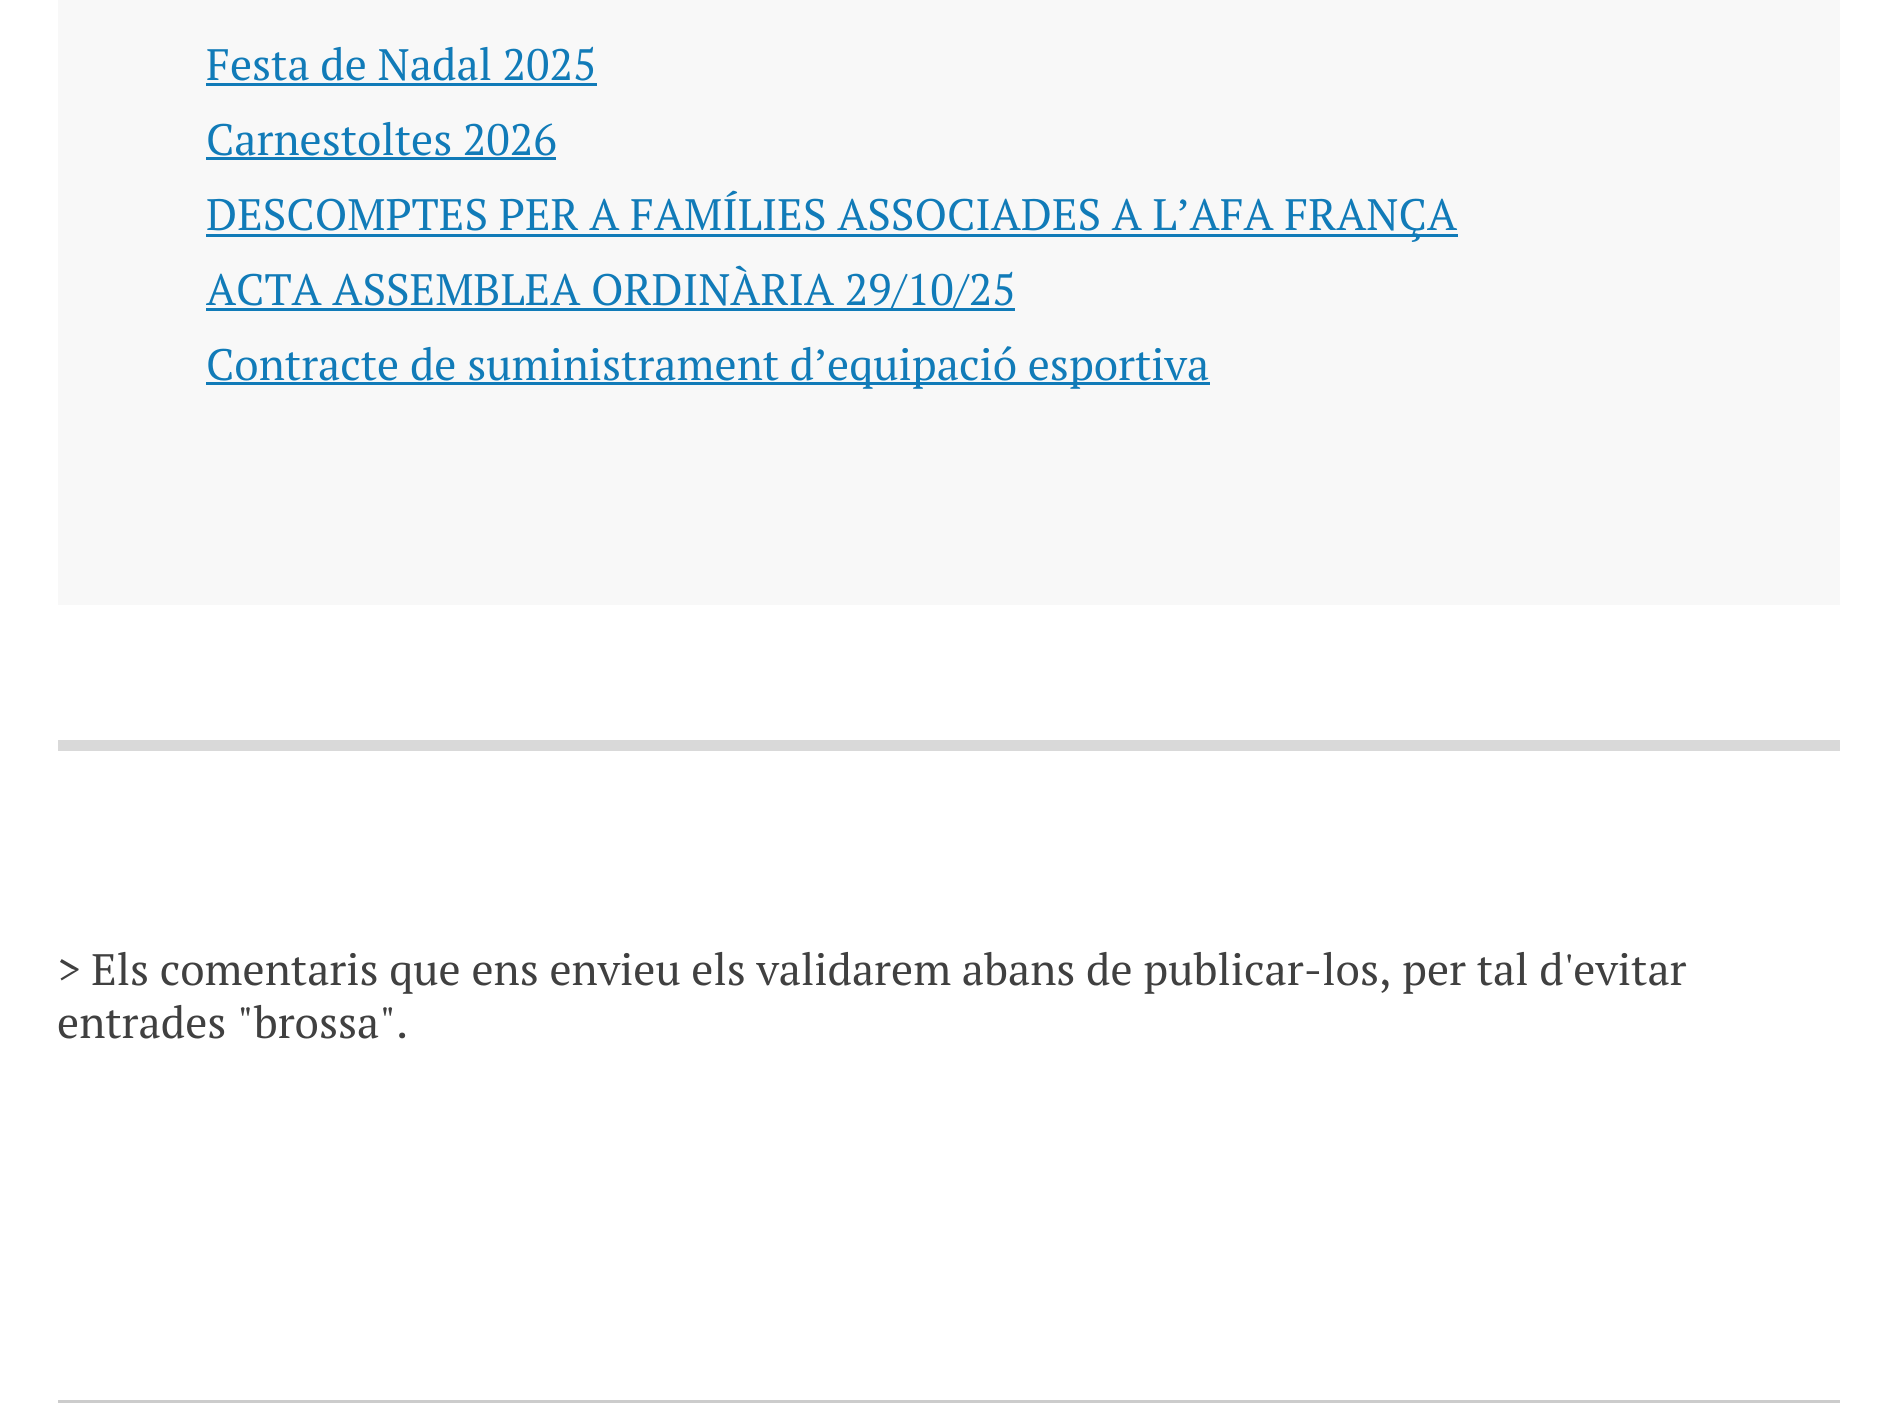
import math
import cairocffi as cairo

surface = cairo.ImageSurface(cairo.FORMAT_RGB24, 1897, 1403)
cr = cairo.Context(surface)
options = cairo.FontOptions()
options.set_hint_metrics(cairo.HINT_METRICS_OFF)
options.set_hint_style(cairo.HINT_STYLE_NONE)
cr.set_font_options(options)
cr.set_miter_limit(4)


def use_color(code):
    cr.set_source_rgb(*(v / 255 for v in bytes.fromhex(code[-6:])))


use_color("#ffffff")
cr.paint()
use_color("#f8f8f8")
cr.rectangle(58, 0, 1782, 605)
cr.fill()
cr.select_font_face("PT Serif")
cr.set_font_size(44)
use_color("#117bb8")
cr.move_to(206, 80)
cr.show_text("Festa de Nadal 2025")
cr.rectangle(206, 83, 391, 3)
cr.fill()
cr.move_to(206, 155)
cr.show_text("Carnestoltes 2026")
cr.rectangle(206, 157, 350, 3)
cr.fill()
cr.rectangle(206, 234, 1252, 3)
cr.fill()
cr.move_to(206, 230)
cr.show_text("DESCOMPTES PER A FAMÍLIES ASSOCIADES A L’AFA FRANÇA")
cr.rectangle(206, 308, 809, 3)
cr.fill()
cr.move_to(206, 305)
cr.show_text("ACTA ASSEMBLEA ORDINÀRIA 29/10/25")
cr.rectangle(206, 382, 1004, 3)
cr.fill()
cr.move_to(206, 380)
cr.show_text("Contracte de suministrament d’equipació esportiva")
use_color("#d9d9d9")
cr.rectangle(58, 740, 1782, 11)
cr.fill()
use_color("#404040")
cr.move_to(57, 985)
cr.show_text("> Els comentaris que ens envieu els validarem abans de publicar-los, per tal d'evitar")
cr.move_to(57, 1038)
cr.show_text("entrades \"brossa\".")
use_color("#cccccc")
cr.rectangle(58, 1400, 1782, 3)
cr.fill()
surface.write_to_png("result.png")
